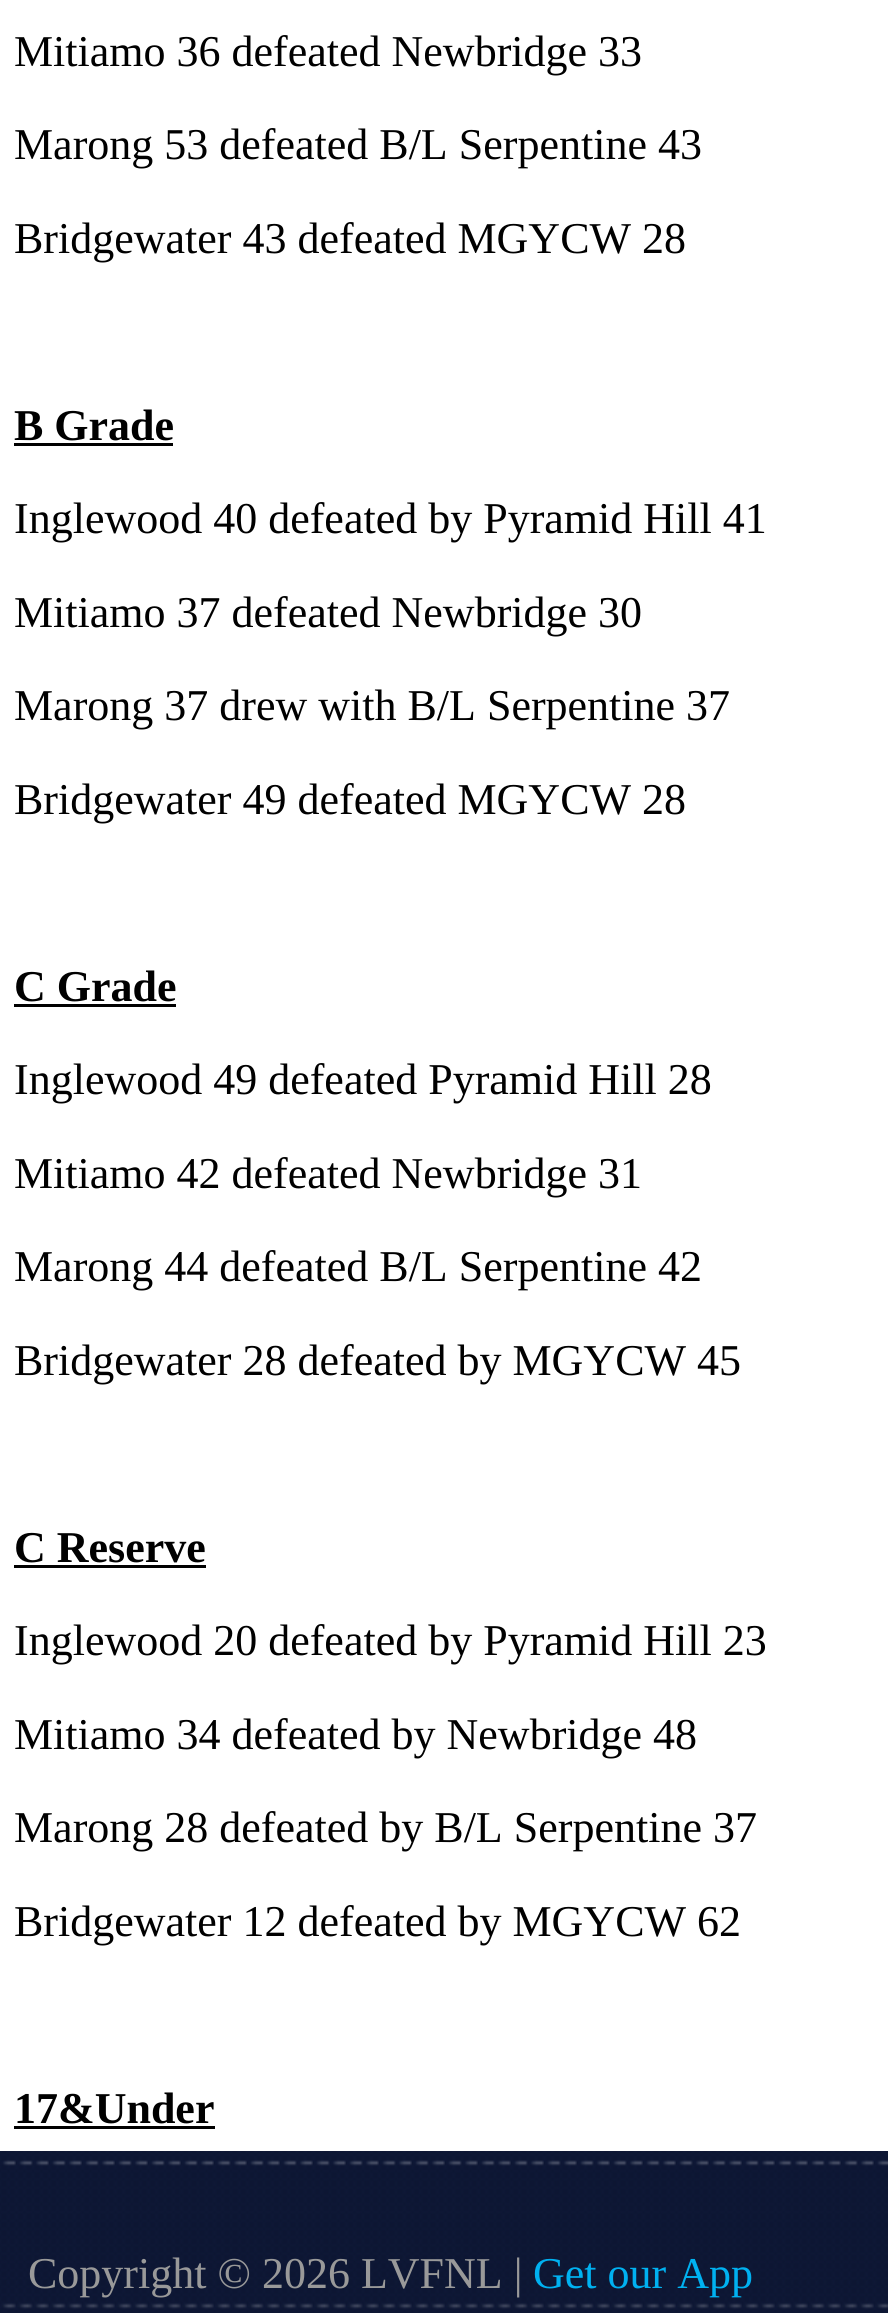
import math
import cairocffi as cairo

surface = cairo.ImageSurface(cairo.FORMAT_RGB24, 888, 2313)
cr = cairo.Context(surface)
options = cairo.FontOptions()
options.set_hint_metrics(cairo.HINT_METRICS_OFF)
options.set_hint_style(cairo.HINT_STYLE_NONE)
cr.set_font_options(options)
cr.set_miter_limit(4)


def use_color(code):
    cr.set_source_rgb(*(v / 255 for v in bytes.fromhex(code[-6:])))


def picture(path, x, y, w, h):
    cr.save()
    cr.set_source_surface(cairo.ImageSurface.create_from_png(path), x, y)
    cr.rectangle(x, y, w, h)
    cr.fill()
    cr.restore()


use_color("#ffffff")
cr.paint()
cr.select_font_face("Liberation Serif")
cr.set_font_size(44)
use_color("#000000")
cr.move_to(14, 66)
cr.show_text("Mitiamo 36 defeated Newbridge 33")
cr.move_to(14, 159)
cr.show_text("Marong 53 defeated B/L Serpentine 43")
cr.move_to(14, 253)
cr.show_text("Bridgewater 43 defeated MGYCW 28")
cr.select_font_face("Liberation Serif", cairo.FONT_SLANT_NORMAL, cairo.FONT_WEIGHT_BOLD)
cr.move_to(14, 440)
cr.show_text("B Grade")
cr.rectangle(14, 443, 159, 3)
cr.fill()
cr.select_font_face("Liberation Serif")
cr.move_to(14, 533)
cr.show_text("Inglewood 40 defeated by Pyramid Hill 41")
cr.move_to(14, 627)
cr.show_text("Mitiamo 37 defeated Newbridge 30")
cr.move_to(14, 720)
cr.show_text("Marong 37 drew with B/L Serpentine 37")
cr.move_to(14, 814)
cr.show_text("Bridgewater 49 defeated MGYCW 28")
cr.select_font_face("Liberation Serif", cairo.FONT_SLANT_NORMAL, cairo.FONT_WEIGHT_BOLD)
cr.move_to(14, 1001)
cr.show_text("C Grade")
cr.rectangle(14, 1004, 162, 3)
cr.fill()
cr.select_font_face("Liberation Serif")
cr.move_to(14, 1094)
cr.show_text("Inglewood 49 defeated Pyramid Hill 28")
cr.move_to(14, 1188)
cr.show_text("Mitiamo 42 defeated Newbridge 31")
cr.move_to(14, 1281)
cr.show_text("Marong 44 defeated B/L Serpentine 42")
cr.move_to(14, 1375)
cr.show_text("Bridgewater 28 defeated by MGYCW 45")
cr.select_font_face("Liberation Serif", cairo.FONT_SLANT_NORMAL, cairo.FONT_WEIGHT_BOLD)
cr.move_to(14, 1562)
cr.show_text("C Reserve")
cr.rectangle(14, 1565, 192, 3)
cr.fill()
cr.select_font_face("Liberation Serif")
cr.move_to(14, 1655)
cr.show_text("Inglewood 20 defeated by Pyramid Hill 23")
cr.move_to(14, 1749)
cr.show_text("Mitiamo 34 defeated by Newbridge 48")
cr.move_to(14, 1842)
cr.show_text("Marong 28 defeated by B/L Serpentine 37")
cr.move_to(14, 1936)
cr.show_text("Bridgewater 12 defeated by MGYCW 62")
cr.select_font_face("Liberation Serif", cairo.FONT_SLANT_NORMAL, cairo.FONT_WEIGHT_BOLD)
cr.move_to(14, 2123)
cr.show_text("17&Under")
cr.rectangle(14, 2126, 201, 3)
cr.fill()
picture("img1.png", 0, 2151, 888, 162)
cr.select_font_face("Liberation Serif")
use_color("#999999")
cr.move_to(28, 2288)
cr.show_text("Copyright © 2026 LVFNL |")
use_color("#00b1f1")
cr.move_to(533, 2288)
cr.show_text("Get our App")
surface.write_to_png("result.png")
